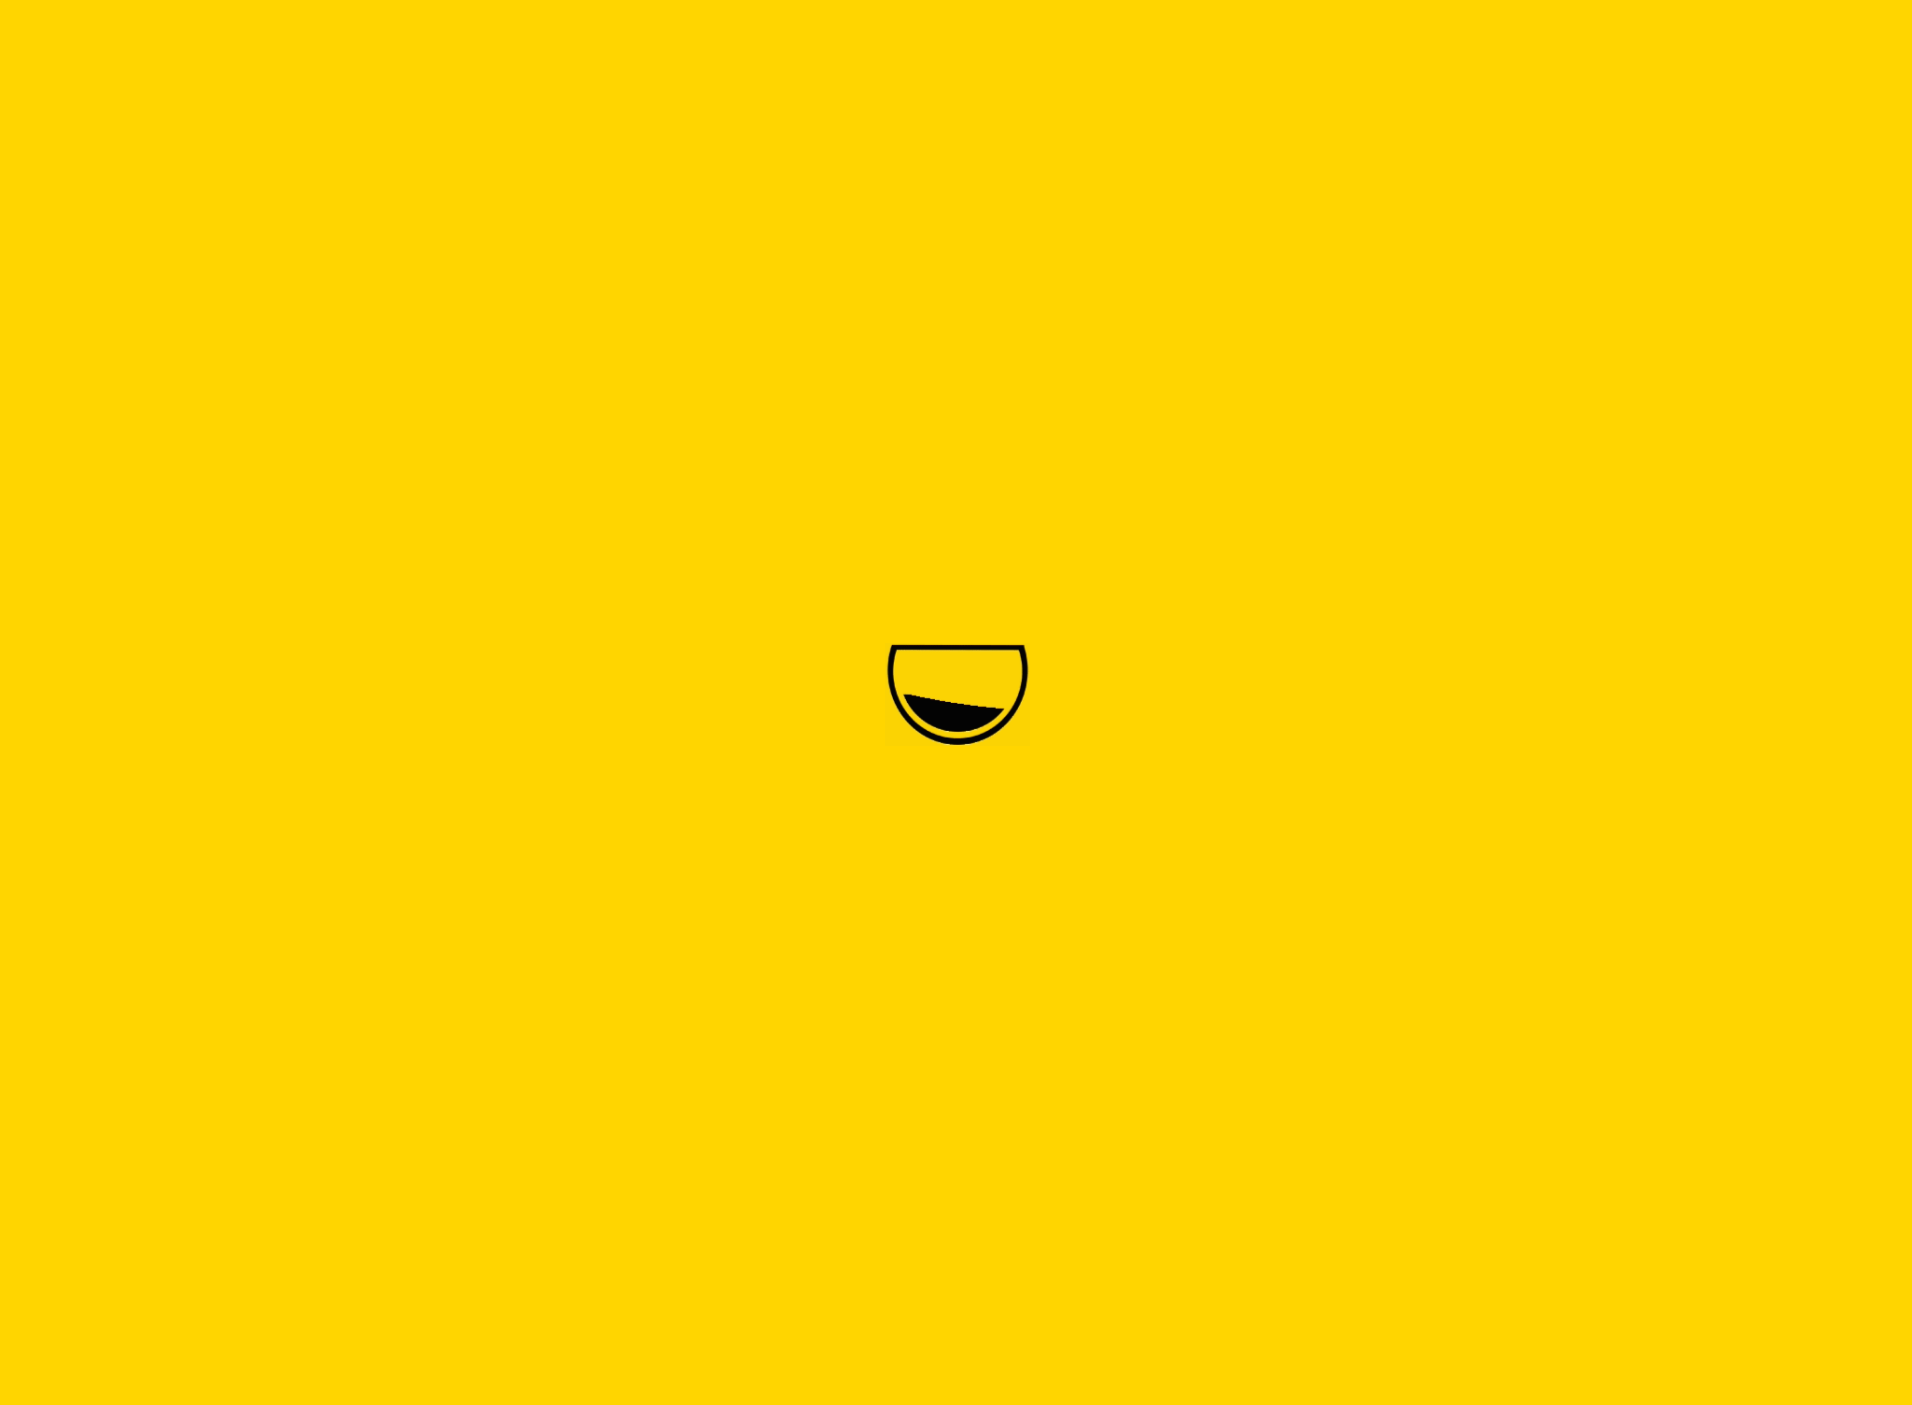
import math
import cairocffi as cairo

surface = cairo.ImageSurface(cairo.FORMAT_RGB24, 1912, 1405)
cr = cairo.Context(surface)
options = cairo.FontOptions()
options.set_hint_metrics(cairo.HINT_METRICS_OFF)
options.set_hint_style(cairo.HINT_STYLE_NONE)
cr.set_font_options(options)
cr.set_miter_limit(4)


def use_color(code):
    cr.set_source_rgb(*(v / 255 for v in bytes.fromhex(code[-6:])))


def picture(path, x, y, w, h):
    cr.save()
    cr.set_source_surface(cairo.ImageSurface.create_from_png(path), x, y)
    cr.rectangle(x, y, w, h)
    cr.fill()
    cr.restore()


use_color("#ffd500")
cr.paint()
picture("img1.png", 885, 643, 145, 103)
surface.write_to_png("result.png")
